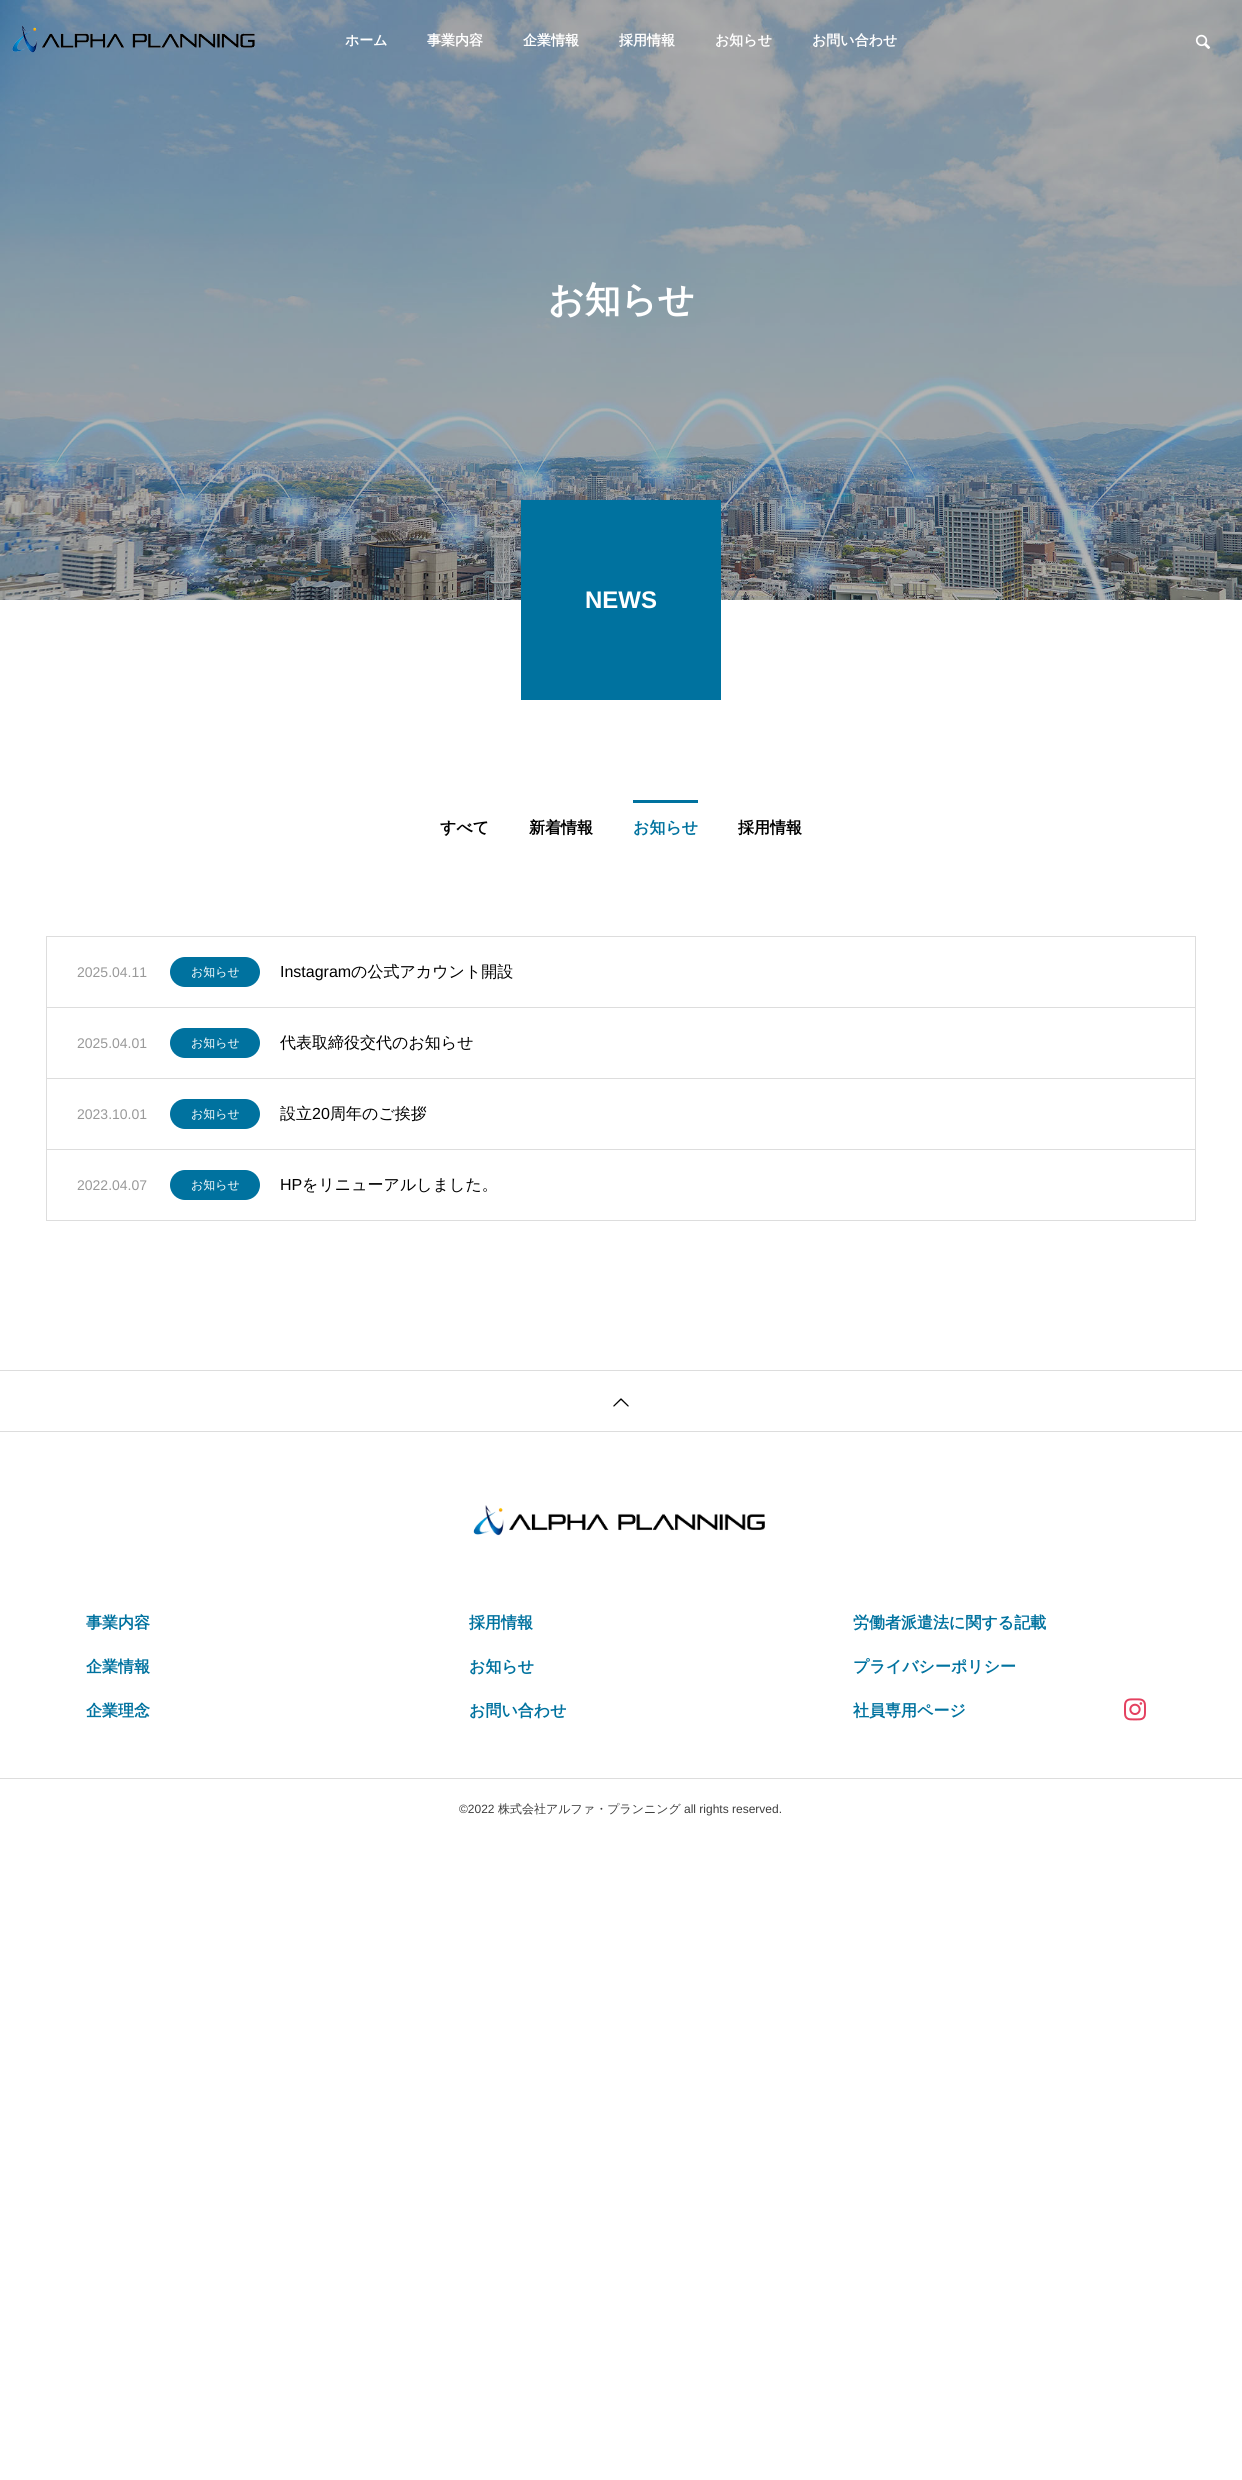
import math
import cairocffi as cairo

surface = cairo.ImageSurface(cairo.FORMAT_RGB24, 1242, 2480)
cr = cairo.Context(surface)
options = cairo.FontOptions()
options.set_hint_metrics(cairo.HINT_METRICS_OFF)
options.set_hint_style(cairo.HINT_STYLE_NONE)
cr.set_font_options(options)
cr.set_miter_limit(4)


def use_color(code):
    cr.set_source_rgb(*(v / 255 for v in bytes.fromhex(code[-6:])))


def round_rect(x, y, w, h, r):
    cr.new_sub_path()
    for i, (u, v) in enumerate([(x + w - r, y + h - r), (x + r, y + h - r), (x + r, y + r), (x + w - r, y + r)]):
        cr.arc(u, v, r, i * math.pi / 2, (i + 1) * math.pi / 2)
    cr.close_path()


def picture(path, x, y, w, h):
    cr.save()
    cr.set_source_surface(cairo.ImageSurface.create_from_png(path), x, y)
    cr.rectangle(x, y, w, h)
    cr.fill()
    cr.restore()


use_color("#ffffff")
cr.paint()
picture("img3.png", 0, 0, 1242, 600)
picture("img1.png", 12, 25, 243, 28)
cr.select_font_face("WenQuanYi Zen Hei", cairo.FONT_SLANT_NORMAL, cairo.FONT_WEIGHT_BOLD)
cr.set_font_size(14)
use_color("#ffffff")
cr.move_to(345, 45)
cr.show_text("ホーム")
cr.move_to(427, 45)
cr.show_text("事業内容")
cr.move_to(523, 45)
cr.show_text("企業情報")
cr.move_to(619, 45)
cr.show_text("採用情報")
cr.move_to(715, 45)
cr.show_text("お知らせ")
cr.move_to(812, 45)
cr.show_text("お問い合わせ")
picture("img2.png", 1195, 34, 16, 15)
cr.set_font_size(36)
cr.move_to(548, 312)
cr.show_text("お知らせ")
use_color("#00729f")
cr.rectangle(521, 500, 200, 200)
cr.fill()
cr.select_font_face("Liberation Sans", cairo.FONT_SLANT_NORMAL, cairo.FONT_WEIGHT_BOLD)
cr.set_font_size(24)
use_color("#ffffff")
cr.move_to(585, 608)
cr.show_text("NEWS")
cr.select_font_face("WenQuanYi Zen Hei", cairo.FONT_SLANT_NORMAL, cairo.FONT_WEIGHT_BOLD)
cr.set_font_size(16)
use_color("#000000")
cr.move_to(440, 833)
cr.show_text("すべて")
cr.move_to(529, 833)
cr.show_text("新着情報")
use_color("#00729f")
cr.rectangle(633, 800, 65, 3)
cr.fill()
cr.move_to(633, 833)
cr.show_text("お知らせ")
use_color("#000000")
cr.move_to(738, 833)
cr.show_text("採用情報")
cr.rectangle(46.5, 936.5, 1149, 71)
use_color("#dddddd")
cr.set_line_width(1)
cr.stroke()
cr.select_font_face("Liberation Sans")
cr.set_font_size(14)
use_color("#999999")
cr.move_to(77, 977)
cr.show_text("2025.04.11")
use_color("#00729f")
round_rect(170, 957, 90, 30, 15)
cr.fill()
cr.select_font_face("WenQuanYi Zen Hei Medium")
cr.set_font_size(12)
use_color("#ffffff")
cr.move_to(191, 976)
cr.show_text("お知らせ")
cr.select_font_face("Liberation Sans")
cr.set_font_size(16)
use_color("#000000")
cr.move_to(280, 977)
cr.show_text("Instagram")
cr.select_font_face("WenQuanYi Zen Hei Medium")
cr.move_to(351, 977)
cr.show_text("の公式アカウント開設")
cr.rectangle(46.5, 1007.5, 1149, 71)
use_color("#dddddd")
cr.stroke()
cr.select_font_face("Liberation Sans")
cr.set_font_size(14)
use_color("#999999")
cr.move_to(77, 1048)
cr.show_text("2025.04.01")
use_color("#00729f")
round_rect(170, 1028, 90, 30, 15)
cr.fill()
cr.select_font_face("WenQuanYi Zen Hei Medium")
cr.set_font_size(12)
use_color("#ffffff")
cr.move_to(191, 1047)
cr.show_text("お知らせ")
cr.set_font_size(16)
use_color("#000000")
cr.move_to(280, 1048)
cr.show_text("代表取締役交代のお知らせ")
cr.rectangle(46.5, 1078.5, 1149, 71)
use_color("#dddddd")
cr.stroke()
cr.select_font_face("Liberation Sans")
cr.set_font_size(14)
use_color("#999999")
cr.move_to(77, 1119)
cr.show_text("2023.10.01")
use_color("#00729f")
round_rect(170, 1099, 90, 30, 15)
cr.fill()
cr.select_font_face("WenQuanYi Zen Hei Medium")
cr.set_font_size(12)
use_color("#ffffff")
cr.move_to(191, 1118)
cr.show_text("お知らせ")
cr.set_font_size(16)
use_color("#000000")
cr.move_to(280, 1119)
cr.show_text("設立")
cr.select_font_face("Liberation Sans")
cr.move_to(312, 1119)
cr.show_text("20")
cr.select_font_face("WenQuanYi Zen Hei Medium")
cr.move_to(330, 1119)
cr.show_text("周年のご挨拶")
cr.rectangle(46.5, 1149.5, 1149, 71)
use_color("#dddddd")
cr.stroke()
cr.select_font_face("Liberation Sans")
cr.set_font_size(14)
use_color("#999999")
cr.move_to(77, 1190)
cr.show_text("2022.04.07")
use_color("#00729f")
round_rect(170, 1170, 90, 30, 15)
cr.fill()
cr.select_font_face("WenQuanYi Zen Hei Medium")
cr.set_font_size(12)
use_color("#ffffff")
cr.move_to(191, 1189)
cr.show_text("お知らせ")
cr.select_font_face("Liberation Sans")
cr.set_font_size(16)
use_color("#000000")
cr.move_to(280, 1190)
cr.show_text("HP")
cr.select_font_face("WenQuanYi Zen Hei Medium")
cr.move_to(302, 1190)
cr.show_text("をリニューアルしました。")
use_color("#dddddd")
cr.rectangle(0, 1370, 1242, 1)
cr.fill()
picture("img4.png", 613, 1398, 16, 9)
cr.rectangle(0, 1431, 1242, 1)
cr.fill()
picture("img5.png", 473, 1505, 292, 31)
cr.select_font_face("WenQuanYi Zen Hei", cairo.FONT_SLANT_NORMAL, cairo.FONT_WEIGHT_BOLD)
use_color("#00729f")
cr.move_to(86, 1628)
cr.show_text("事業内容")
cr.move_to(86, 1672)
cr.show_text("企業情報")
cr.move_to(86, 1716)
cr.show_text("企業理念")
cr.move_to(469, 1628)
cr.show_text("採用情報")
cr.move_to(469, 1672)
cr.show_text("お知らせ")
cr.move_to(469, 1716)
cr.show_text("お問い合わせ")
cr.move_to(853, 1628)
cr.show_text("労働者派遣法に関する記載")
cr.move_to(853, 1672)
cr.show_text("プライバシーポリシー")
cr.move_to(853, 1716)
cr.show_text("社員専用ページ")
picture("img6.png", 1124, 1698, 22, 23)
use_color("#dddddd")
cr.rectangle(0, 1778, 1242, 1)
cr.fill()
cr.select_font_face("Liberation Sans")
cr.set_font_size(12)
use_color("#3d3d3d")
cr.move_to(459, 1813)
cr.show_text("©2022")
cr.select_font_face("WenQuanYi Zen Hei Medium")
cr.move_to(498, 1813)
cr.show_text("株式会社アルファ・プランニング")
cr.select_font_face("Liberation Sans")
cr.move_to(684, 1813)
cr.show_text("all rights reserved.")
surface.write_to_png("result.png")
